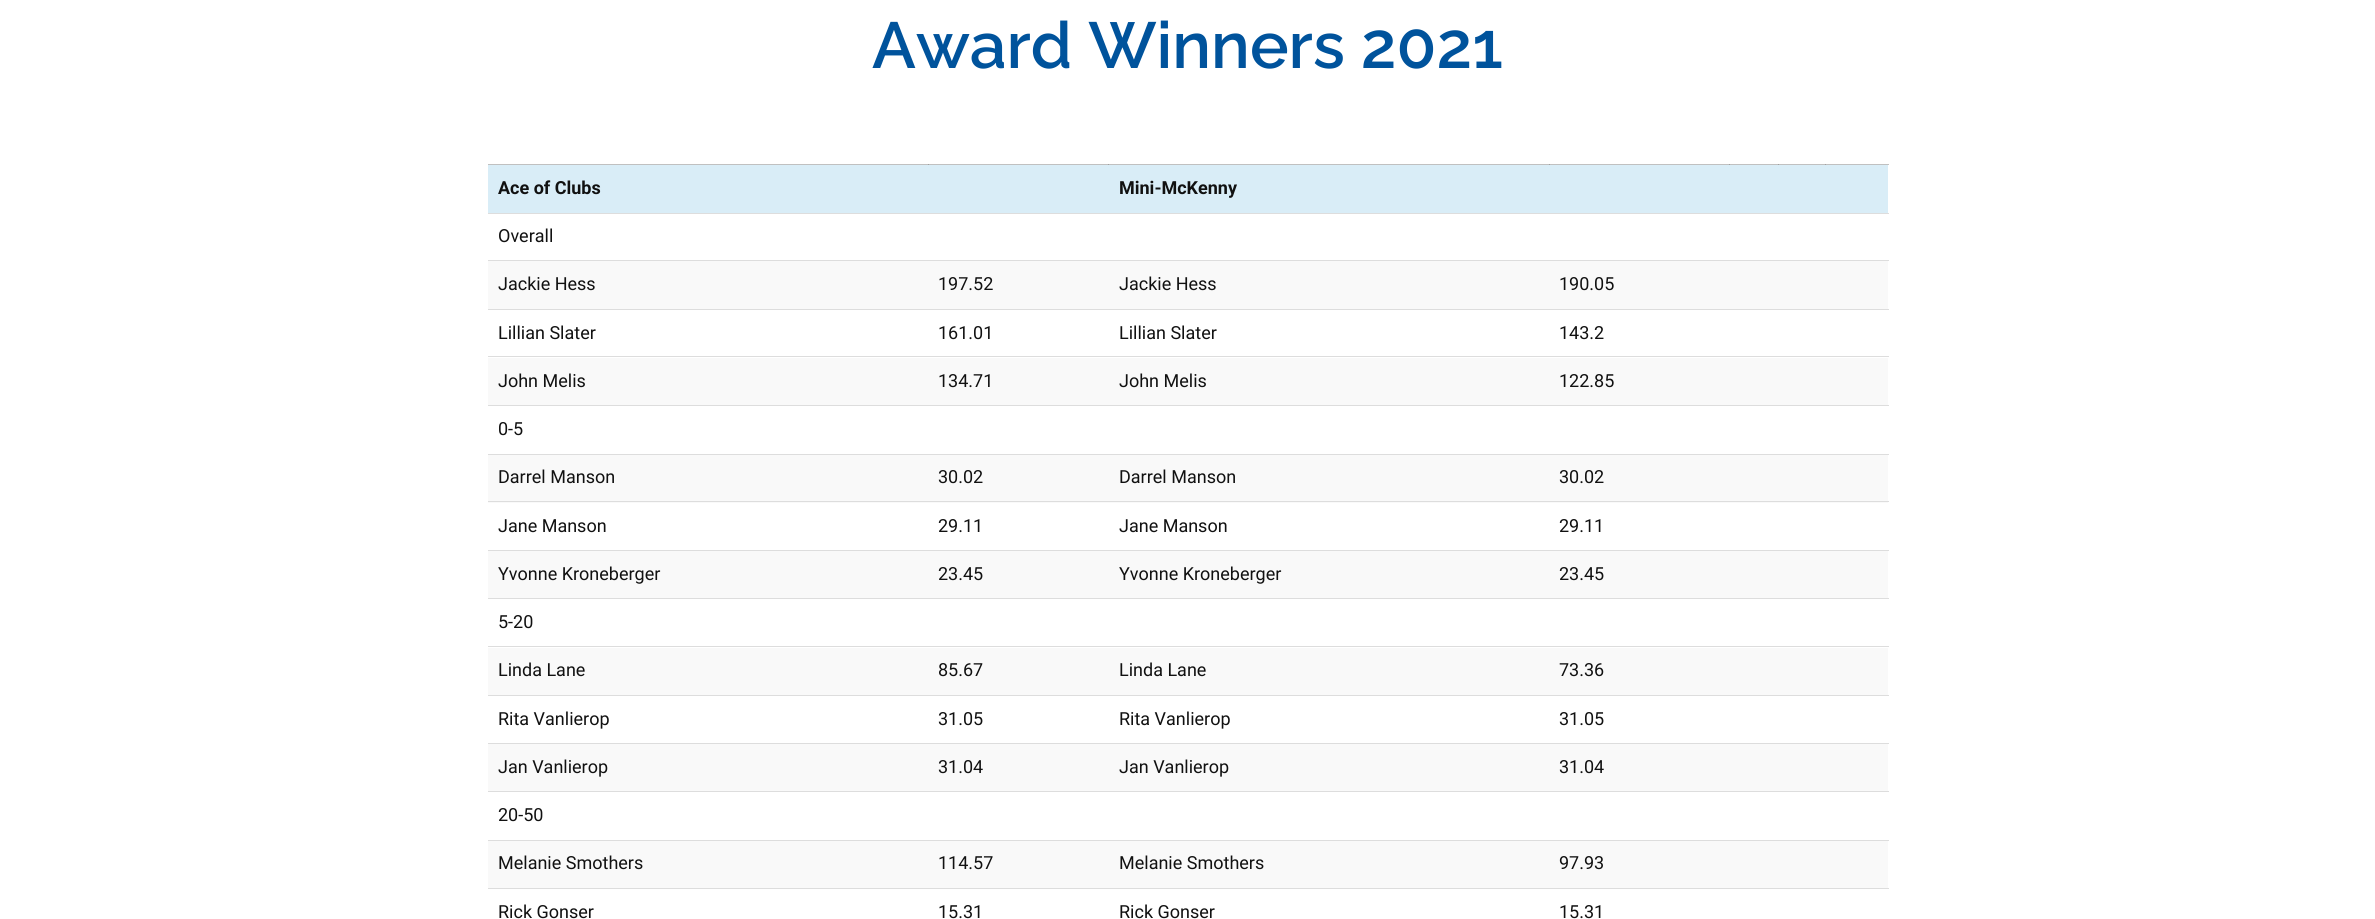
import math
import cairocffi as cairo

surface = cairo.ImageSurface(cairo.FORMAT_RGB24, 2375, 919)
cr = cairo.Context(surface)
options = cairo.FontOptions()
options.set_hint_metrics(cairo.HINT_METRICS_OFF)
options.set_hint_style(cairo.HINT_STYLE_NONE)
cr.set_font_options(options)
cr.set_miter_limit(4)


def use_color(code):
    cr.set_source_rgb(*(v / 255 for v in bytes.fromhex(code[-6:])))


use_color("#ffffff")
cr.paint()
use_color("#c0c0c0")
cr.rectangle(488, 164, 1401, 1)
cr.fill()
use_color("#a0a0a0")
cr.rectangle(928, 164, 1, 1)
cr.fill()
cr.rectangle(1108, 164, 1, 1)
cr.fill()
cr.rectangle(1549, 164, 1, 1)
cr.fill()
cr.rectangle(1729, 164, 1, 1)
cr.fill()
cr.rectangle(1778, 164, 1, 1)
cr.fill()
cr.select_font_face("Raleway SemiBold")
cr.set_font_size(65)
use_color("#00539c")
cr.move_to(872, 68)
cr.show_text("Award Winners 2021")
use_color("#a0a0a0")
cr.rectangle(1825, 164, 1, 1)
cr.fill()
use_color("#d9edf7")
cr.rectangle(488, 165, 1400, 48)
cr.fill()
cr.select_font_face("Roboto", cairo.FONT_SLANT_NORMAL, cairo.FONT_WEIGHT_BOLD)
cr.set_font_size(18)
use_color("#111111")
cr.move_to(498, 194)
cr.show_text("Ace of Clubs")
cr.move_to(1119, 194)
cr.show_text("Mini-McKenny")
use_color("#dddddd")
cr.rectangle(488, 213, 1401, 1)
cr.fill()
cr.select_font_face("Roboto")
use_color("#111111")
cr.move_to(498, 242)
cr.show_text("Overall")
use_color("#dddddd")
cr.rectangle(488, 260, 1401, 1)
cr.fill()
use_color("#f9f9f9")
cr.rectangle(488, 261, 1400, 48)
cr.fill()
use_color("#111111")
cr.move_to(498, 290)
cr.show_text("Jackie Hess")
cr.move_to(938, 290)
cr.show_text("197.52")
cr.move_to(1119, 290)
cr.show_text("Jackie Hess")
cr.move_to(1559, 290)
cr.show_text("190.05")
use_color("#dddddd")
cr.rectangle(488, 309, 1401, 1)
cr.fill()
use_color("#111111")
cr.move_to(498, 339)
cr.show_text("Lillian Slater")
cr.move_to(938, 339)
cr.show_text("161.01")
cr.move_to(1119, 339)
cr.show_text("Lillian Slater")
cr.move_to(1559, 339)
cr.show_text("143.2")
use_color("#dddddd")
cr.rectangle(488, 356, 1401, 1)
cr.fill()
use_color("#f9f9f9")
cr.rectangle(488, 358, 1400, 47)
cr.fill()
use_color("#111111")
cr.move_to(498, 387)
cr.show_text("John Melis")
cr.move_to(938, 387)
cr.show_text("134.71")
cr.move_to(1119, 387)
cr.show_text("John Melis")
cr.move_to(1559, 387)
cr.show_text("122.85")
use_color("#dddddd")
cr.rectangle(488, 405, 1401, 1)
cr.fill()
use_color("#111111")
cr.move_to(498, 435)
cr.show_text("0-5")
use_color("#dddddd")
cr.rectangle(488, 454, 1401, 1)
cr.fill()
use_color("#f9f9f9")
cr.rectangle(488, 455, 1400, 48)
cr.fill()
use_color("#111111")
cr.move_to(498, 483)
cr.show_text("Darrel Manson")
cr.move_to(938, 483)
cr.show_text("30.02")
cr.move_to(1119, 483)
cr.show_text("Darrel Manson")
cr.move_to(1559, 483)
cr.show_text("30.02")
use_color("#dddddd")
cr.rectangle(488, 501, 1401, 1)
cr.fill()
use_color("#111111")
cr.move_to(498, 532)
cr.show_text("Jane Manson")
cr.move_to(938, 532)
cr.show_text("29.11")
cr.move_to(1119, 532)
cr.show_text("Jane Manson")
cr.move_to(1559, 532)
cr.show_text("29.11")
use_color("#dddddd")
cr.rectangle(488, 550, 1401, 1)
cr.fill()
use_color("#f9f9f9")
cr.rectangle(488, 551, 1400, 47)
cr.fill()
use_color("#111111")
cr.move_to(498, 580)
cr.show_text("Yvonne Kroneberger")
cr.move_to(938, 580)
cr.show_text("23.45")
cr.move_to(1119, 580)
cr.show_text("Yvonne Kroneberger")
cr.move_to(1559, 580)
cr.show_text("23.45")
use_color("#dddddd")
cr.rectangle(488, 598, 1401, 1)
cr.fill()
use_color("#111111")
cr.move_to(498, 628)
cr.show_text("5-20")
use_color("#dddddd")
cr.rectangle(488, 646, 1401, 1)
cr.fill()
use_color("#f9f9f9")
cr.rectangle(488, 648, 1400, 47)
cr.fill()
use_color("#111111")
cr.move_to(498, 676)
cr.show_text("Linda Lane")
cr.move_to(938, 676)
cr.show_text("85.67")
cr.move_to(1119, 676)
cr.show_text("Linda Lane")
cr.move_to(1559, 676)
cr.show_text("73.36")
use_color("#dddddd")
cr.rectangle(488, 695, 1401, 1)
cr.fill()
use_color("#111111")
cr.move_to(498, 725)
cr.show_text("Rita Vanlierop")
cr.move_to(938, 725)
cr.show_text("31.05")
cr.move_to(1119, 725)
cr.show_text("Rita Vanlierop")
cr.move_to(1559, 725)
cr.show_text("31.05")
use_color("#dddddd")
cr.rectangle(488, 743, 1401, 1)
cr.fill()
use_color("#f9f9f9")
cr.rectangle(488, 744, 1400, 47)
cr.fill()
use_color("#111111")
cr.move_to(498, 773)
cr.show_text("Jan Vanlierop")
cr.move_to(938, 773)
cr.show_text("31.04")
cr.move_to(1119, 773)
cr.show_text("Jan Vanlierop")
cr.move_to(1559, 773)
cr.show_text("31.04")
use_color("#dddddd")
cr.rectangle(488, 791, 1401, 1)
cr.fill()
use_color("#111111")
cr.move_to(498, 821)
cr.show_text("20-50")
use_color("#dddddd")
cr.rectangle(488, 840, 1401, 1)
cr.fill()
use_color("#f9f9f9")
cr.rectangle(488, 841, 1400, 47)
cr.fill()
use_color("#111111")
cr.move_to(498, 869)
cr.show_text("Melanie Smothers")
cr.move_to(938, 869)
cr.show_text("114.57")
cr.move_to(1119, 869)
cr.show_text("Melanie Smothers")
cr.move_to(1559, 869)
cr.show_text("97.93")
use_color("#dddddd")
cr.rectangle(488, 888, 1401, 1)
cr.fill()
use_color("#111111")
cr.move_to(498, 918)
cr.show_text("Rick Gonser")
cr.move_to(938, 918)
cr.show_text("15.31")
cr.move_to(1119, 918)
cr.show_text("Rick Gonser")
cr.move_to(1559, 918)
cr.show_text("15.31")
surface.write_to_png("result.png")
